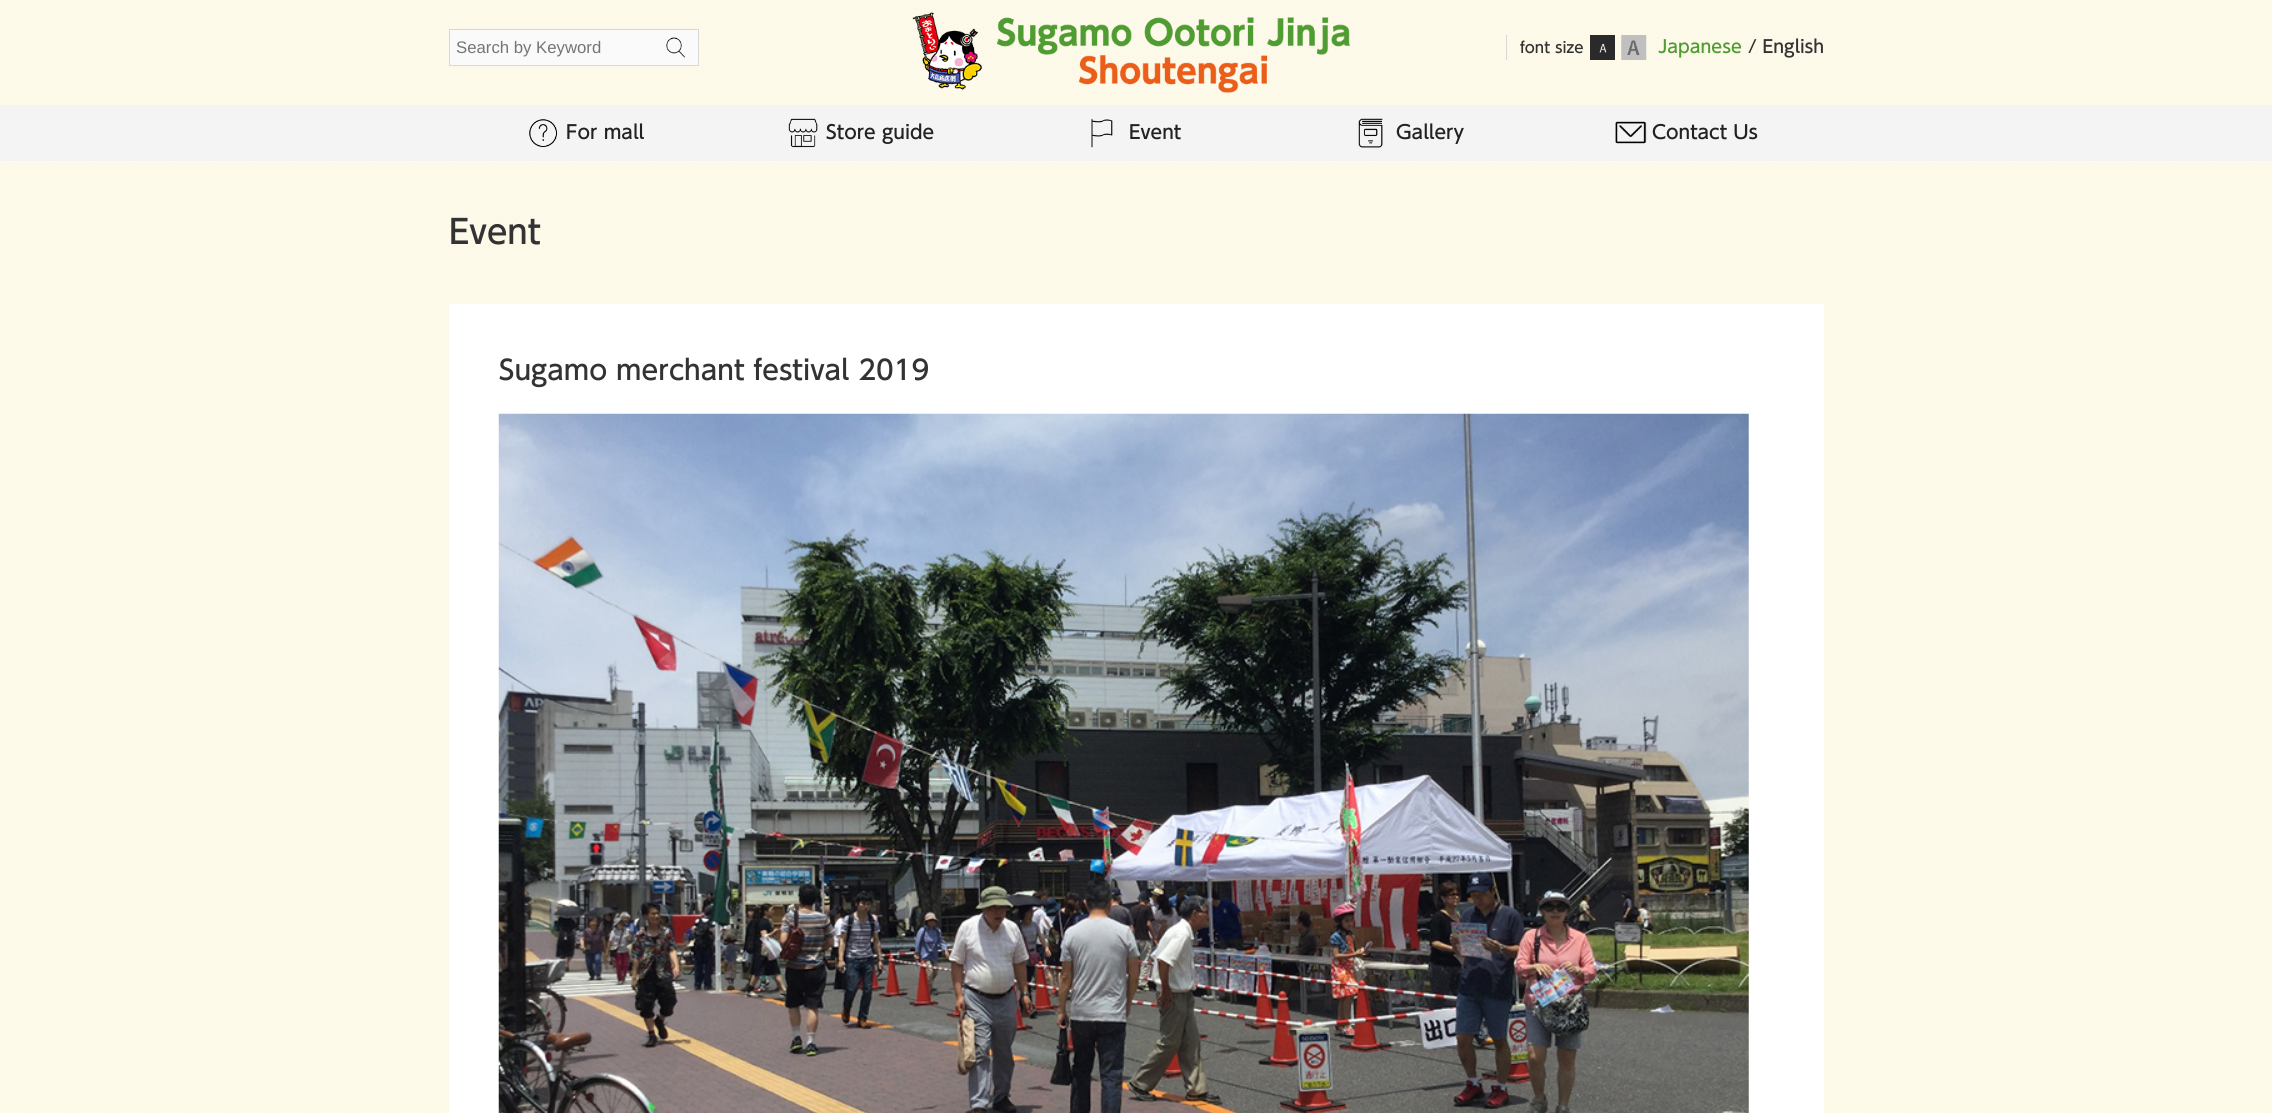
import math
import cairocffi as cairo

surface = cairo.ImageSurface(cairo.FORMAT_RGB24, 2272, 1113)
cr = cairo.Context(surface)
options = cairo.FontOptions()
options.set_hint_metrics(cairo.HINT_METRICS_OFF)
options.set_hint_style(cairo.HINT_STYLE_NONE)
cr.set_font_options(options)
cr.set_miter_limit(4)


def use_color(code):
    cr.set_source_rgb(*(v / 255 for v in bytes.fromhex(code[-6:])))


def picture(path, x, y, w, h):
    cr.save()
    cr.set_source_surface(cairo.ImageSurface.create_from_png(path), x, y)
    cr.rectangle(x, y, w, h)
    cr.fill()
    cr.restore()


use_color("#ffffff")
cr.paint()
picture("img1.png", 0, 0, 2272, 1113)
picture("img2.png", 912, 12, 438, 81)
use_color("#fafafa")
cr.rectangle(450, 30, 248, 35)
cr.fill()
picture("img3.png", 666, 37, 19, 21)
cr.rectangle(449.5, 29.5, 249, 36)
use_color("#d8d8d8")
cr.set_line_width(1)
cr.stroke()
cr.select_font_face("Liberation Sans")
cr.set_font_size(16.75)
use_color("#757575")
cr.move_to(456, 53)
cr.show_text("Search by Keyword")
use_color("#d8d8d8")
cr.rectangle(1506, 35, 1, 25)
cr.fill()
cr.select_font_face("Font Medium")
cr.set_font_size(15)
use_color("#333333")
cr.move_to(1520, 53)
cr.show_text("font size")
picture("img4.png", 1590, 35, 25, 25)
picture("img5.png", 1621, 35, 26, 25)
cr.set_font_size(17.5)
use_color("#4f9c32")
cr.move_to(1658, 53)
cr.show_text("Japanese")
use_color("#333333")
cr.move_to(1748, 53)
cr.show_text("/ English")
use_color("#f5f4f5")
cr.rectangle(0, 105, 2272, 56)
cr.fill()
picture("img6.png", 529, 119, 29, 29)
cr.set_font_size(18.75)
use_color("#222222")
cr.move_to(566, 139)
cr.show_text("For mall")
picture("img7.png", 788, 118, 30, 30)
cr.move_to(826, 139)
cr.show_text("Store guide")
picture("img8.png", 1091, 118, 22, 30)
cr.move_to(1129, 139)
cr.show_text("Event")
picture("img9.png", 1358, 118, 25, 30)
cr.move_to(1396, 139)
cr.show_text("Gallery")
picture("img10.png", 1615, 121, 32, 23)
cr.move_to(1652, 139)
cr.show_text("Contact Us")
cr.set_font_size(33)
use_color("#333333")
cr.move_to(449, 244)
cr.show_text("Event")
use_color("#ffffff")
cr.rectangle(449, 304, 1375, 809)
cr.fill()
cr.set_font_size(26.9)
use_color("#333333")
cr.move_to(499, 380)
cr.show_text("Sugamo merchant festival 2019")
picture("img11.png", 498, 413, 1251, 700)
surface.write_to_png("result.png")
